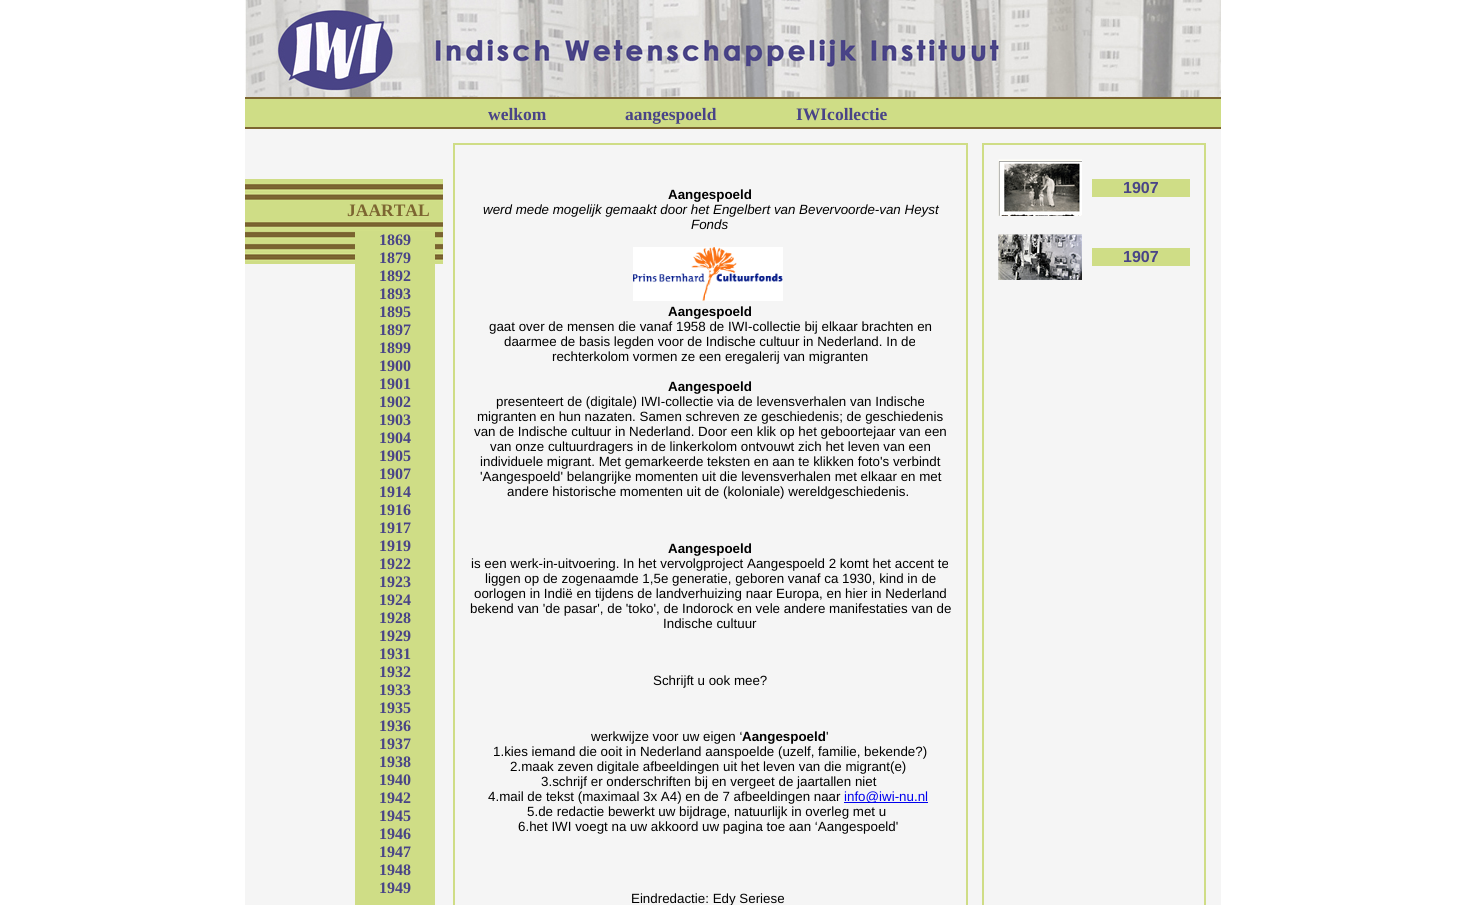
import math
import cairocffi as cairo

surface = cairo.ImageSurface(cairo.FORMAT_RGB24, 1465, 905)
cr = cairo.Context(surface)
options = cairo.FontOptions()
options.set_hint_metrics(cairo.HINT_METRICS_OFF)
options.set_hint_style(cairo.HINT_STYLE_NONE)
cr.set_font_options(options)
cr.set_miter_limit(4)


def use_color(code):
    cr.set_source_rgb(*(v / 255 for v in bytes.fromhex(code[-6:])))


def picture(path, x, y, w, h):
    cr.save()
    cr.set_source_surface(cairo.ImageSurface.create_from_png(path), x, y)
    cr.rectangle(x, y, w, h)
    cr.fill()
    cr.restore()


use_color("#ffffff")
cr.paint()
picture("img1.png", 245, 0, 976, 97)
use_color("#cfdd86")
cr.rectangle(245, 99, 976, 28)
cr.fill()
use_color("#7c6531")
cr.rectangle(245, 97, 976, 2)
cr.fill()
cr.rectangle(245, 127, 976, 2)
cr.fill()
cr.select_font_face("Liberation Serif", cairo.FONT_SLANT_NORMAL, cairo.FONT_WEIGHT_BOLD)
cr.set_font_size(17.5)
use_color("#494487")
cr.move_to(488, 120)
cr.show_text("welkom")
cr.move_to(625, 120)
cr.show_text("aangespoeld")
cr.move_to(796, 120)
cr.show_text("IWIcollectie")
use_color("#f5f5f5")
cr.rectangle(245, 129, 976, 776)
cr.fill()
picture("img2.png", 245, 179, 198, 85)
use_color("#7c6531")
cr.move_to(347, 216)
cr.show_text("JAARTAL")
use_color("#cfdd86")
cr.rectangle(355, 231, 80, 674)
cr.fill()
cr.set_font_size(16)
use_color("#494487")
cr.move_to(379, 245)
cr.show_text("1869")
cr.move_to(379, 263)
cr.show_text("1879")
cr.move_to(379, 281)
cr.show_text("1892")
cr.move_to(379, 299)
cr.show_text("1893")
cr.move_to(379, 317)
cr.show_text("1895")
cr.move_to(379, 335)
cr.show_text("1897")
cr.move_to(379, 353)
cr.show_text("1899")
cr.move_to(379, 371)
cr.show_text("1900")
cr.move_to(379, 389)
cr.show_text("1901")
cr.move_to(379, 407)
cr.show_text("1902")
cr.move_to(379, 425)
cr.show_text("1903")
cr.move_to(379, 443)
cr.show_text("1904")
cr.move_to(379, 461)
cr.show_text("1905")
cr.move_to(379, 479)
cr.show_text("1907")
cr.move_to(379, 497)
cr.show_text("1914")
cr.move_to(379, 515)
cr.show_text("1916")
cr.move_to(379, 533)
cr.show_text("1917")
cr.move_to(379, 551)
cr.show_text("1919")
cr.move_to(379, 569)
cr.show_text("1922")
cr.move_to(379, 587)
cr.show_text("1923")
cr.move_to(379, 605)
cr.show_text("1924")
cr.move_to(379, 623)
cr.show_text("1928")
cr.move_to(379, 641)
cr.show_text("1929")
cr.move_to(379, 659)
cr.show_text("1931")
cr.move_to(379, 677)
cr.show_text("1932")
cr.move_to(379, 695)
cr.show_text("1933")
cr.move_to(379, 713)
cr.show_text("1935")
cr.move_to(379, 731)
cr.show_text("1936")
cr.move_to(379, 749)
cr.show_text("1937")
cr.move_to(379, 767)
cr.show_text("1938")
cr.move_to(379, 785)
cr.show_text("1940")
cr.move_to(379, 803)
cr.show_text("1942")
cr.move_to(379, 821)
cr.show_text("1945")
cr.move_to(379, 839)
cr.show_text("1946")
cr.move_to(379, 857)
cr.show_text("1947")
cr.move_to(379, 875)
cr.show_text("1948")
cr.move_to(379, 893)
cr.show_text("1949")
cr.rectangle(454, 144, 513, 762)
use_color("#cfdd86")
cr.stroke()
cr.select_font_face("Liberation Sans", cairo.FONT_SLANT_NORMAL, cairo.FONT_WEIGHT_BOLD)
cr.set_font_size(13.35)
use_color("#000000")
cr.move_to(668, 199)
cr.show_text("Aangespoeld")
cr.select_font_face("Liberation Sans", cairo.FONT_SLANT_ITALIC)
cr.move_to(483, 214)
cr.show_text("werd mede mogelijk gemaakt door het Engelbert van Bevervoorde-van Heyst")
cr.move_to(691, 229)
cr.show_text("Fonds")
picture("img3.png", 633, 247, 150, 54)
cr.select_font_face("Liberation Sans", cairo.FONT_SLANT_NORMAL, cairo.FONT_WEIGHT_BOLD)
cr.move_to(668, 316)
cr.show_text("Aangespoeld")
cr.select_font_face("Liberation Sans")
cr.move_to(489, 331)
cr.show_text("gaat over de mensen die vanaf 1958 de IWI-collectie bij elkaar brachten en")
cr.move_to(504, 346)
cr.show_text("daarmee de basis legden voor de Indische cultuur in Nederland. In de")
cr.move_to(552, 361)
cr.show_text("rechterkolom vormen ze een eregalerij van migranten")
cr.select_font_face("Liberation Sans", cairo.FONT_SLANT_NORMAL, cairo.FONT_WEIGHT_BOLD)
cr.move_to(668, 391)
cr.show_text("Aangespoeld")
cr.select_font_face("Liberation Sans")
cr.move_to(496, 406)
cr.show_text("presenteert de (digitale) IWI-collectie via de levensverhalen van Indische")
cr.move_to(477, 421)
cr.show_text("migranten en hun nazaten. Samen schreven ze geschiedenis; de geschiedenis")
cr.move_to(474, 436)
cr.show_text("van de Indische cultuur in Nederland. Door een klik op het geboortejaar van een")
cr.move_to(490, 451)
cr.show_text("van onze cultuurdragers in de linkerkolom ontvouwt zich het leven van een")
cr.move_to(480, 466)
cr.show_text("individuele migrant. Met gemarkeerde teksten en aan te klikken foto's verbindt")
cr.move_to(480, 481)
cr.show_text("'Aangespoeld' belangrijke momenten uit die levensverhalen met elkaar en met")
cr.move_to(507, 496)
cr.show_text("andere historische momenten uit de (koloniale) wereldgeschiedenis.")
cr.select_font_face("Liberation Sans", cairo.FONT_SLANT_NORMAL, cairo.FONT_WEIGHT_BOLD)
cr.move_to(668, 553)
cr.show_text("Aangespoeld")
cr.select_font_face("Liberation Sans")
cr.move_to(471, 568)
cr.show_text("is een werk-in-uitvoering. In het vervolgproject Aangespoeld 2 komt het accent te")
cr.move_to(485, 583)
cr.show_text("liggen op de zogenaamde 1,5e generatie, geboren vanaf ca 1930, kind in de")
cr.move_to(474, 598)
cr.show_text("oorlogen in Indië en tijdens de landverhuizing naar Europa, en hier in Nederland")
cr.move_to(470, 613)
cr.show_text("bekend van 'de pasar', de 'toko', de Indorock en vele andere manifestaties van de")
cr.move_to(663, 628)
cr.show_text("Indische cultuur")
cr.move_to(653, 685)
cr.show_text("Schrijft u ook mee?")
cr.move_to(591, 741)
cr.show_text("werkwijze voor uw eigen ‘")
cr.select_font_face("Liberation Sans", cairo.FONT_SLANT_NORMAL, cairo.FONT_WEIGHT_BOLD)
cr.move_to(742, 741)
cr.show_text("Aangespoeld")
cr.select_font_face("Liberation Sans")
cr.move_to(826, 741)
cr.show_text("'")
cr.move_to(493, 756)
cr.show_text("1.kies iemand die ooit in Nederland aanspoelde (uzelf, familie, bekende?)")
cr.move_to(510, 771)
cr.show_text("2.maak zeven digitale afbeeldingen uit het leven van die migrant(e)")
cr.move_to(541, 786)
cr.show_text("3.schrijf er onderschriften bij en vergeet de jaartallen niet")
cr.move_to(488, 801)
cr.show_text("4.mail de tekst (maximaal 3x A4) en de 7 afbeeldingen naar")
use_color("#0000ee")
cr.rectangle(844, 802, 84, 1)
cr.fill()
cr.move_to(844, 801)
cr.show_text("info@iwi-nu.nl")
use_color("#000000")
cr.move_to(527, 816)
cr.show_text("5.de redactie bewerkt uw bijdrage, natuurlijk in overleg met u")
cr.move_to(518, 831)
cr.show_text("6.het IWI voegt na uw akkoord uw pagina toe aan ‘Aangespoeld'")
cr.move_to(631, 903)
cr.show_text("Eindredactie: Edy Seriese")
cr.rectangle(983, 144, 222, 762)
use_color("#cfdd86")
cr.stroke()
picture("img4.png", 998, 159, 84, 57)
cr.rectangle(1092, 179, 98, 18)
cr.fill()
cr.select_font_face("Liberation Sans", cairo.FONT_SLANT_NORMAL, cairo.FONT_WEIGHT_BOLD)
cr.set_font_size(16)
use_color("#494487")
cr.move_to(1123, 193)
cr.show_text("1907")
picture("img5.png", 998, 234, 84, 46)
use_color("#cfdd86")
cr.rectangle(1092, 248, 98, 18)
cr.fill()
use_color("#494487")
cr.move_to(1123, 262)
cr.show_text("1907")
surface.write_to_png("result.png")
